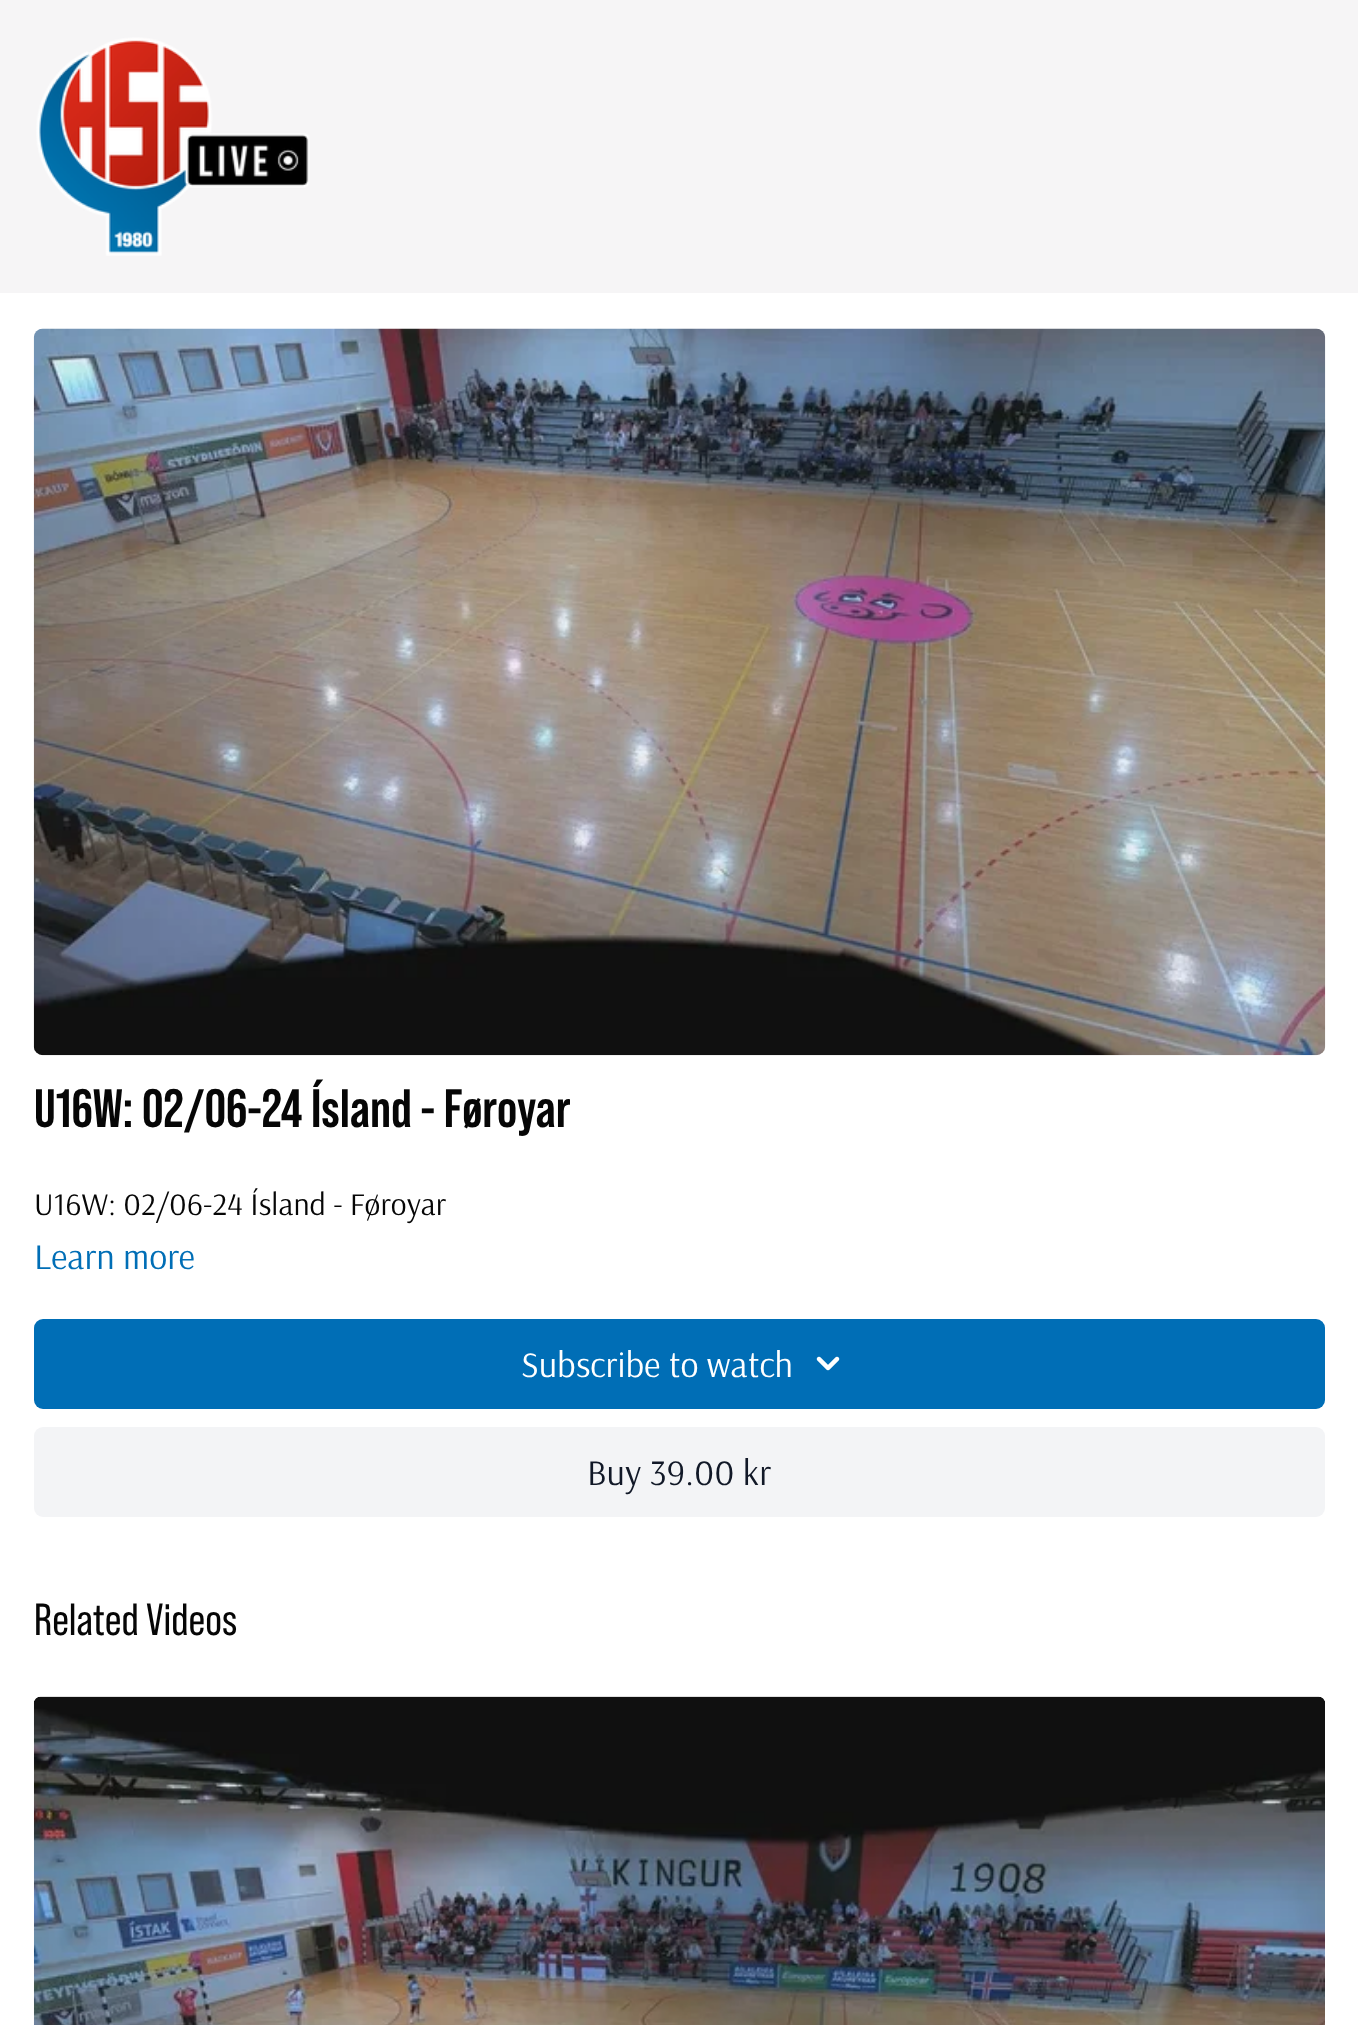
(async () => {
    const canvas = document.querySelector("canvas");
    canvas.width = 1358;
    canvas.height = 2025;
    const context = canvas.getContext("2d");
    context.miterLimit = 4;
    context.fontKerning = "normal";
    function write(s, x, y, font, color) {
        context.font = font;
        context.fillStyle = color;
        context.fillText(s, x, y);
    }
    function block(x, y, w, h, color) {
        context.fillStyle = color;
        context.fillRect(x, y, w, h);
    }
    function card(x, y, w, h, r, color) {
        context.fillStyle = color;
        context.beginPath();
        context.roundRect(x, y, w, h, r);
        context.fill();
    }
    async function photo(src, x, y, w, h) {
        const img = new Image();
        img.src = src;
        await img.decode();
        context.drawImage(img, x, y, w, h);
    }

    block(0, 0, 1358, 2025, "rgb(255, 255, 255)");
    block(0, 0, 1358, 293, "rgb(246, 245, 246)");
    await photo("media/1.png", 36, 37, 274, 219);
    await photo("media/2.png", 33, 328, 1293, 728);
    write("U16W: 02/06-24 Ísland - Føroyar", 34, 1127, "bold 54px Bebas Neue", "rgb(6, 6, 6)");
    write("U16W: 02/06-24 Ísland - Føroyar", 34, 1215, "31.5px Arsenal", "rgb(6, 6, 6)");
    write("Learn more", 34, 1269, "36px Arsenal", "rgb(0, 110, 182)");
    card(34, 1319, 1291, 90, 9, "rgb(0, 110, 182)");
    write("Subscribe to watch", 521, 1377, "36px Arsenal", "rgb(255, 255, 255)");
    await photo("media/3.png", 816, 1356, 24, 15);
    card(34, 1427, 1291, 90, 9, "rgb(243, 244, 246)");
    write("Buy 39.00 kr", 587, 1485, "36px Arsenal", "rgb(17, 24, 39)");
    write("Related Videos", 34, 1635, "45px Bebas Neue", "rgb(6, 6, 6)");
    await photo("media/4.png", 33, 1696, 1292, 329);
})();
